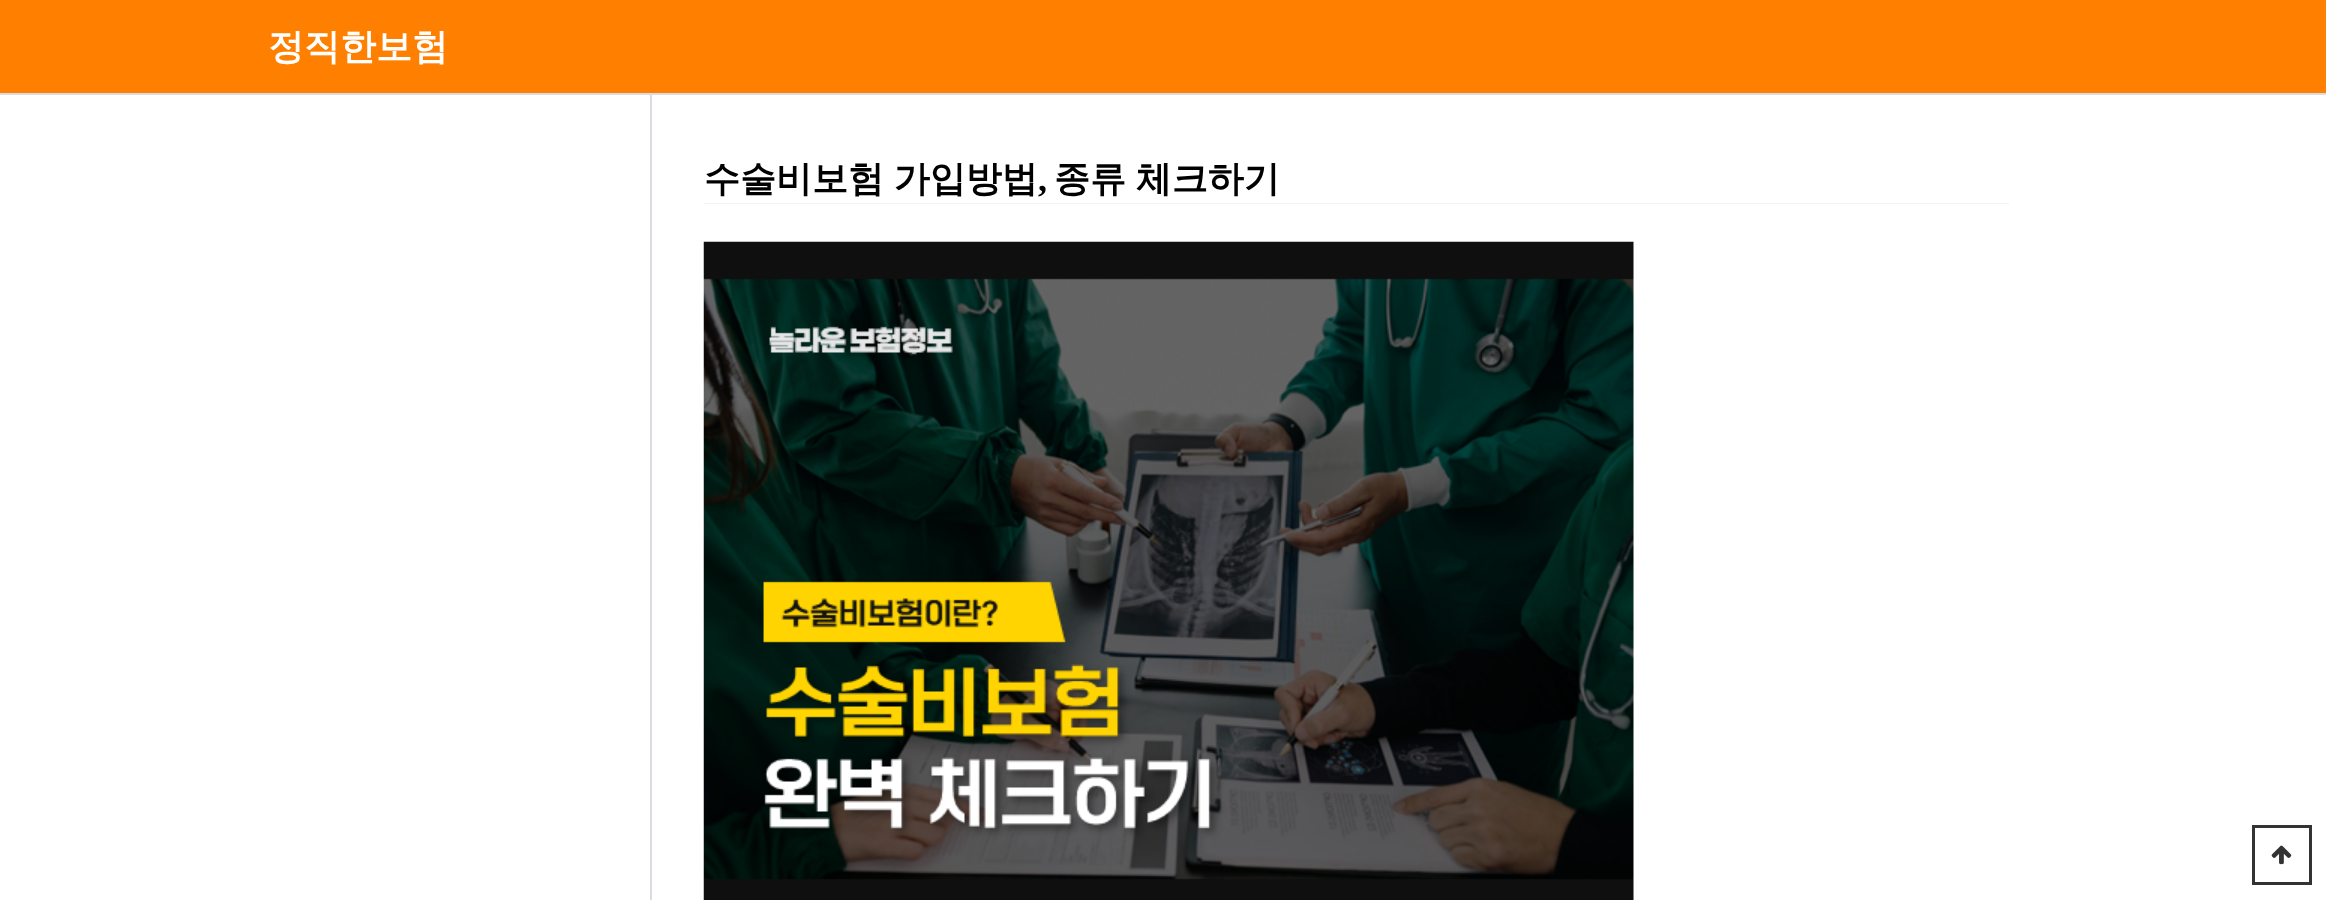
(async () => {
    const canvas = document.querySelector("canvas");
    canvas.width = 2326;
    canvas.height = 900;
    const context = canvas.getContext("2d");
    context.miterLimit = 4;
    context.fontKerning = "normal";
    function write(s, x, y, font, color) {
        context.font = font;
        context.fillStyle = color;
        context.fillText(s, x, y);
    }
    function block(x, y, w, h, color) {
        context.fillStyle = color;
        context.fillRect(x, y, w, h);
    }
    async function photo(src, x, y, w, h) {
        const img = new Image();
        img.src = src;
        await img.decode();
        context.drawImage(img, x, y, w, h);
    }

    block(0, 0, 2326, 900, "rgb(217, 221, 227)");
    block(0, 0, 2326, 93, "rgb(255, 128, 0)");
    write("정직한보험", 268, 59, "bold 36px WenQuanYi Zen Hei", "rgb(255, 255, 255)");
    block(0, 95, 650, 805, "rgb(255, 255, 255)");
    block(652, 95, 1674, 805, "rgb(255, 255, 255)");
    block(704, 203, 1305, 1, "rgb(241, 243, 246)");
    context.wordSpacing = "-1px";
    write("수술비보험 가입방법", 704, 191, "bold 36px WenQuanYi Zen Hei", "rgb(0, 0, 0)");
    context.wordSpacing = "0px";
    write(",", 1038, 191, "bold 36px Liberation Serif", "rgb(0, 0, 0)");
    context.wordSpacing = "-1px";
    write("종류 체크하기", 1054, 191, "bold 36px WenQuanYi Zen Hei", "rgb(0, 0, 0)");
    await photo("media/1.png", 703, 241, 931, 659);
    context.strokeStyle = "rgb(51, 51, 51)";
    context.lineWidth = 3;
    context.strokeRect(2253.5, 826.5, 57, 57);
    await photo("media/2.png", 2271, 845, 21, 20);
})();
